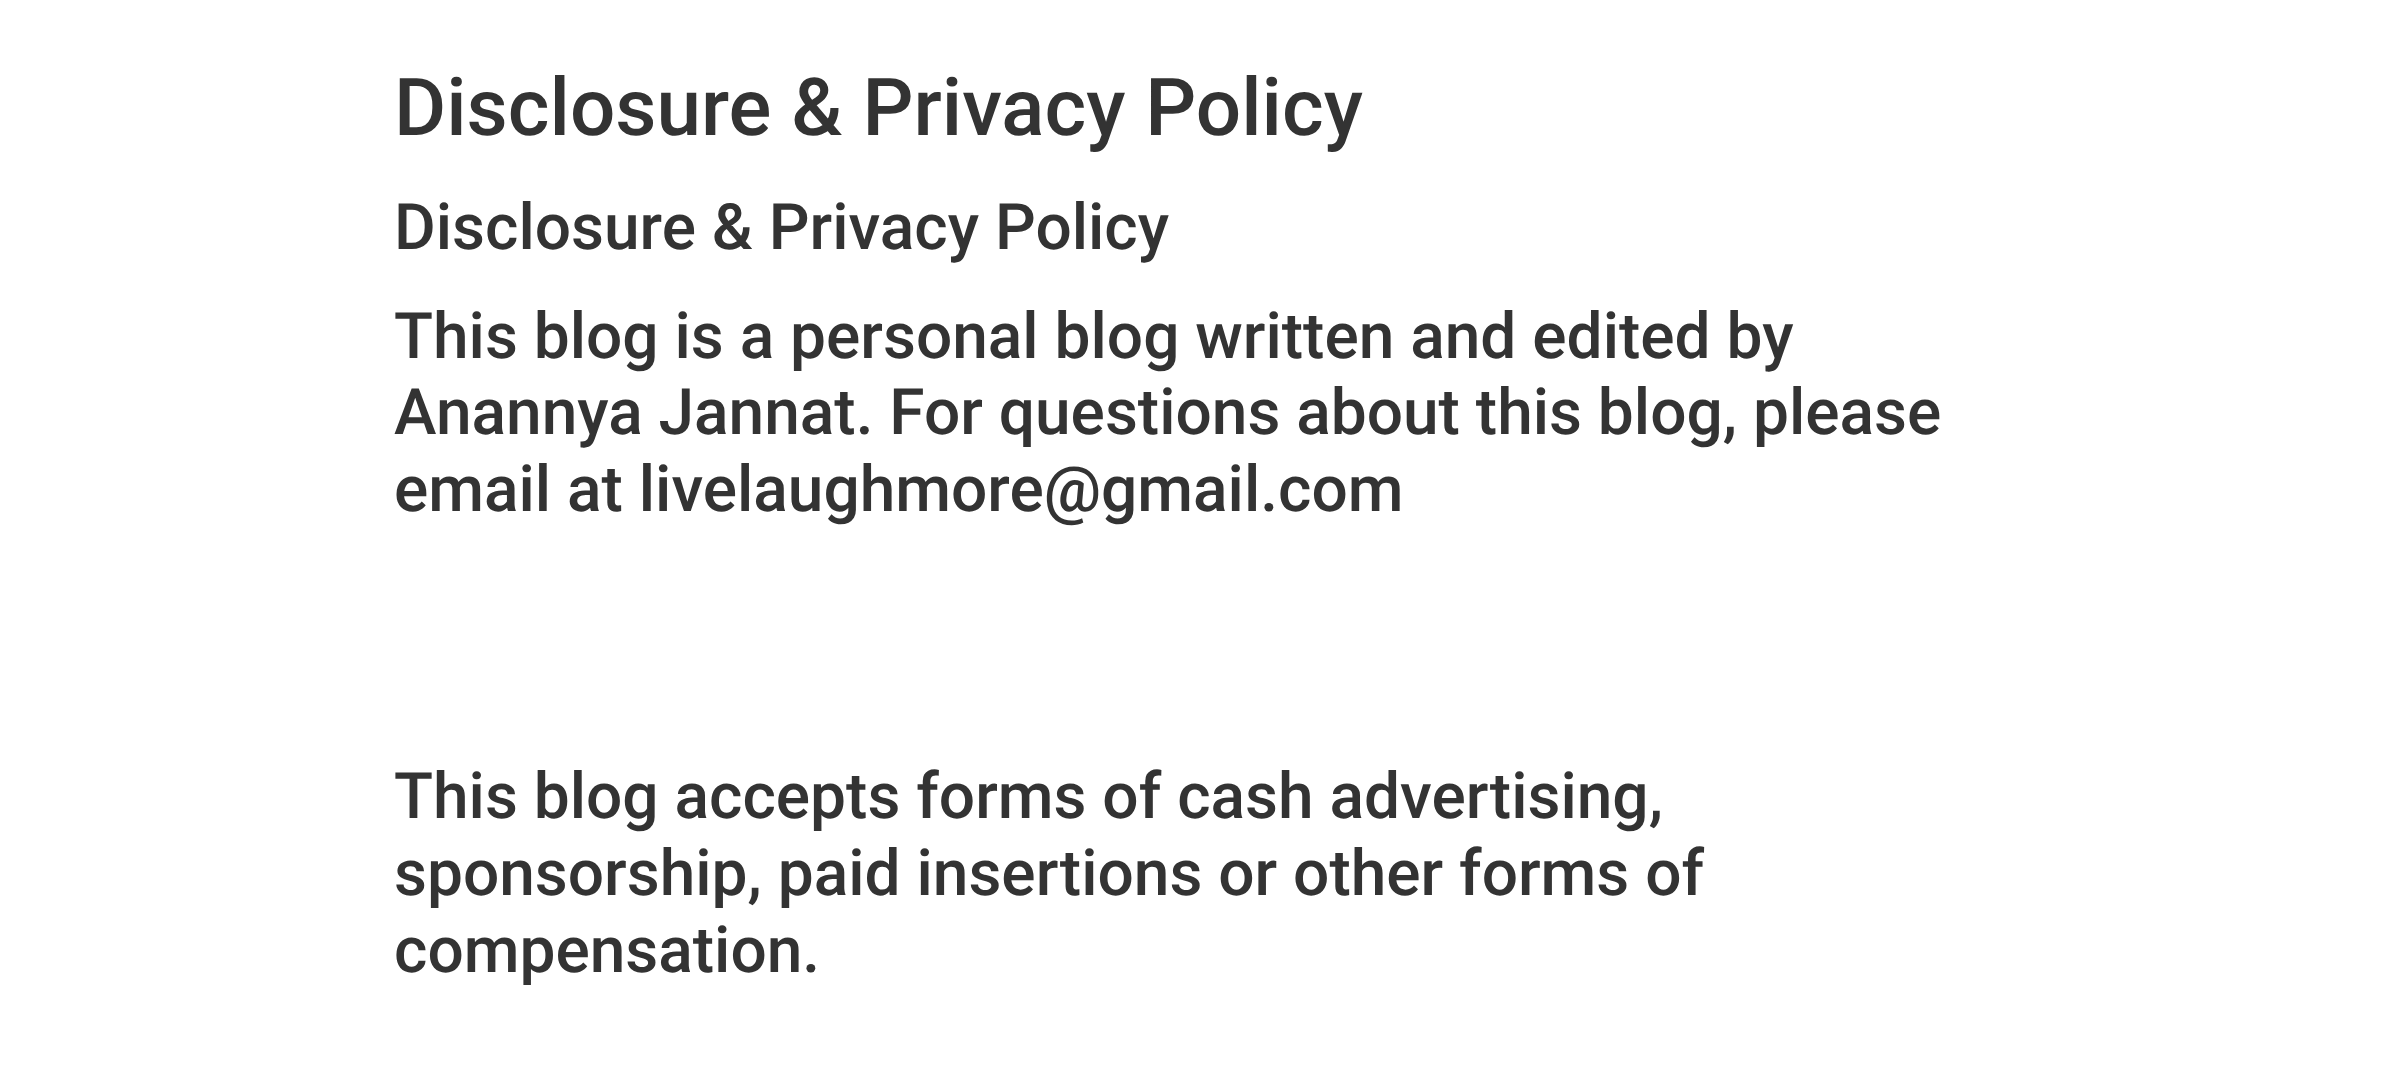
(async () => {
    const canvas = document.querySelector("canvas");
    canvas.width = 2388;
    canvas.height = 1084;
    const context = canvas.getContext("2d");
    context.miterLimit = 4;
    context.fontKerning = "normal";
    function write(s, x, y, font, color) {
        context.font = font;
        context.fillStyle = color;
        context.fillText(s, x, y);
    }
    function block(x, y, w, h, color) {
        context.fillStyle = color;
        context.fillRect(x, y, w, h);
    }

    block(0, 0, 2388, 1084, "rgb(255, 255, 255)");
    write("Disclosure & Privacy Policy", 394, 135, "500 80px Roboto", "rgb(51, 51, 51)");
    write("Disclosure & Privacy Policy", 394, 249, "500 64px Roboto", "rgb(51, 51, 51)");
    write("This blog is a personal blog written and edited by", 394, 358, "500 64px Roboto", "rgb(51, 51, 51)");
    write("Anannya Jannat. For questions about this blog, please", 394, 434, "500 64px Roboto", "rgb(51, 51, 51)");
    write("email at livelaughmore@gmail.com", 394, 511, "500 64px Roboto", "rgb(51, 51, 51)");
    write("This blog accepts forms of cash advertising,", 394, 818, "500 64px Roboto", "rgb(51, 51, 51)");
    write("sponsorship, paid insertions or other forms of", 394, 895, "500 64px Roboto", "rgb(51, 51, 51)");
    write("compensation.", 394, 972, "500 64px Roboto", "rgb(51, 51, 51)");
})();
